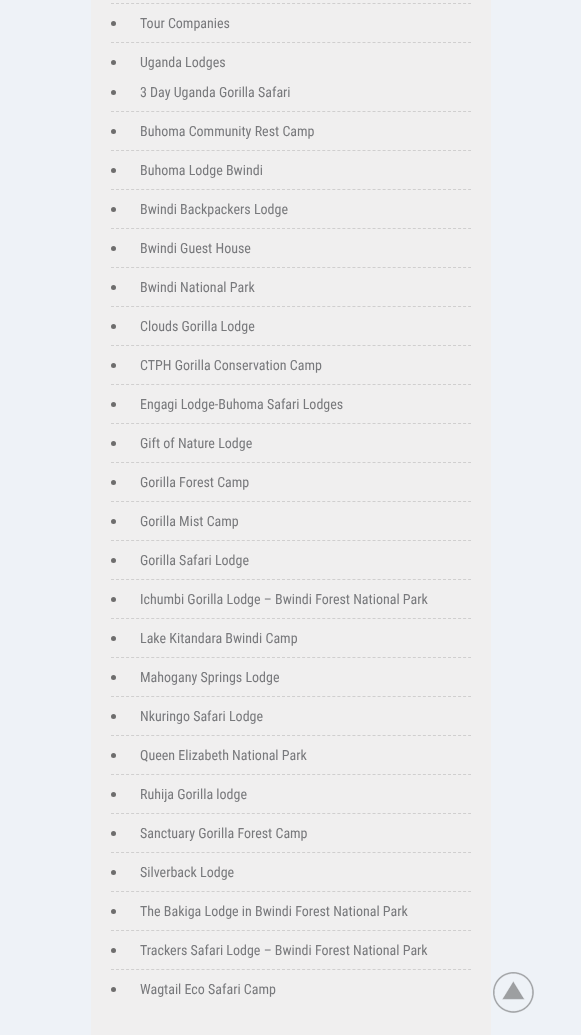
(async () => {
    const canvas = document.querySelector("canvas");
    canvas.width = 581;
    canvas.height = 1035;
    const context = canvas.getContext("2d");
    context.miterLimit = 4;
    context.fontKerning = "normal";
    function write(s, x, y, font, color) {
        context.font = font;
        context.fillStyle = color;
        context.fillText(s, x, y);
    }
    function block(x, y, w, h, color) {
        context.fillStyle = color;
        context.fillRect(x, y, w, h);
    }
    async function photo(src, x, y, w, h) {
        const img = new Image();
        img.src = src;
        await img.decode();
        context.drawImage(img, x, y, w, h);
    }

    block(0, 0, 581, 1035, "rgb(238, 242, 247)");
    block(91, 0, 400, 1035, "rgb(240, 239, 239)");
    context.beginPath();
    context.moveTo(111, 3.5);
    context.lineTo(471, 3.5);
    context.strokeStyle = "rgb(208, 207, 207)";
    context.setLineDash([3, 2.03]);
    context.stroke();
    context.beginPath();
    context.moveTo(111, 42.5);
    context.lineTo(471, 42.5);
    context.stroke();
    context.fillStyle = "rgb(110, 109, 109)";
    context.beginPath();
    context.arc(113.5, 23.5, 2.5, 0, Math.PI * 2);
    context.fill();
    write("Tour Companies", 140, 28, "14px Roboto Condensed", "rgb(120, 121, 124)");
    context.fillStyle = "rgb(110, 109, 109)";
    context.beginPath();
    context.arc(113.5, 62.5, 2.5, 0, Math.PI * 2);
    context.fill();
    write("Uganda Lodges", 140, 67, "14px Roboto Condensed", "rgb(120, 121, 124)");
    context.beginPath();
    context.moveTo(111, 111.5);
    context.lineTo(471, 111.5);
    context.stroke();
    context.fillStyle = "rgb(110, 109, 109)";
    context.beginPath();
    context.arc(113.5, 92.5, 2.5, 0, Math.PI * 2);
    context.fill();
    write("3 Day Uganda Gorilla Safari", 140, 97, "14px Roboto Condensed", "rgb(120, 121, 124)");
    context.beginPath();
    context.moveTo(111, 150.5);
    context.lineTo(471, 150.5);
    context.stroke();
    context.fillStyle = "rgb(110, 109, 109)";
    context.beginPath();
    context.arc(113.5, 131.5, 2.5, 0, Math.PI * 2);
    context.fill();
    write("Buhoma Community Rest Camp", 140, 136, "14px Roboto Condensed", "rgb(120, 121, 124)");
    context.beginPath();
    context.moveTo(111, 189.5);
    context.lineTo(471, 189.5);
    context.stroke();
    context.fillStyle = "rgb(110, 109, 109)";
    context.beginPath();
    context.arc(113.5, 170.5, 2.5, 0, Math.PI * 2);
    context.fill();
    write("Buhoma Lodge Bwindi", 140, 175, "14px Roboto Condensed", "rgb(120, 121, 124)");
    context.beginPath();
    context.moveTo(111, 228.5);
    context.lineTo(471, 228.5);
    context.stroke();
    context.fillStyle = "rgb(110, 109, 109)";
    context.beginPath();
    context.arc(113.5, 209.5, 2.5, 0, Math.PI * 2);
    context.fill();
    write("Bwindi Backpackers Lodge", 140, 214, "14px Roboto Condensed", "rgb(120, 121, 124)");
    context.beginPath();
    context.moveTo(111, 267.5);
    context.lineTo(471, 267.5);
    context.stroke();
    context.fillStyle = "rgb(110, 109, 109)";
    context.beginPath();
    context.arc(113.5, 248.5, 2.5, 0, Math.PI * 2);
    context.fill();
    write("Bwindi Guest House", 140, 253, "14px Roboto Condensed", "rgb(120, 121, 124)");
    context.beginPath();
    context.moveTo(111, 306.5);
    context.lineTo(471, 306.5);
    context.stroke();
    context.fillStyle = "rgb(110, 109, 109)";
    context.beginPath();
    context.arc(113.5, 287.5, 2.5, 0, Math.PI * 2);
    context.fill();
    write("Bwindi National Park", 140, 292, "14px Roboto Condensed", "rgb(120, 121, 124)");
    context.beginPath();
    context.moveTo(111, 345.5);
    context.lineTo(471, 345.5);
    context.stroke();
    context.fillStyle = "rgb(110, 109, 109)";
    context.beginPath();
    context.arc(113.5, 326.5, 2.5, 0, Math.PI * 2);
    context.fill();
    write("Clouds Gorilla Lodge", 140, 331, "14px Roboto Condensed", "rgb(120, 121, 124)");
    context.beginPath();
    context.moveTo(111, 384.5);
    context.lineTo(471, 384.5);
    context.stroke();
    context.fillStyle = "rgb(110, 109, 109)";
    context.beginPath();
    context.arc(113.5, 365.5, 2.5, 0, Math.PI * 2);
    context.fill();
    write("CTPH Gorilla Conservation Camp", 140, 370, "14px Roboto Condensed", "rgb(120, 121, 124)");
    context.beginPath();
    context.moveTo(111, 423.5);
    context.lineTo(471, 423.5);
    context.stroke();
    context.fillStyle = "rgb(110, 109, 109)";
    context.beginPath();
    context.arc(113.5, 404.5, 2.5, 0, Math.PI * 2);
    context.fill();
    write("Engagi Lodge-Buhoma Safari Lodges", 140, 409, "14px Roboto Condensed", "rgb(120, 121, 124)");
    context.beginPath();
    context.moveTo(111, 462.5);
    context.lineTo(471, 462.5);
    context.stroke();
    context.fillStyle = "rgb(110, 109, 109)";
    context.beginPath();
    context.arc(113.5, 443.5, 2.5, 0, Math.PI * 2);
    context.fill();
    write("Gift of Nature Lodge", 140, 448, "14px Roboto Condensed", "rgb(120, 121, 124)");
    context.beginPath();
    context.moveTo(111, 501.5);
    context.lineTo(471, 501.5);
    context.stroke();
    context.fillStyle = "rgb(110, 109, 109)";
    context.beginPath();
    context.arc(113.5, 482.5, 2.5, 0, Math.PI * 2);
    context.fill();
    write("Gorilla Forest Camp", 140, 487, "14px Roboto Condensed", "rgb(120, 121, 124)");
    context.beginPath();
    context.moveTo(111, 540.5);
    context.lineTo(471, 540.5);
    context.stroke();
    context.fillStyle = "rgb(110, 109, 109)";
    context.beginPath();
    context.arc(113.5, 521.5, 2.5, 0, Math.PI * 2);
    context.fill();
    write("Gorilla Mist Camp", 140, 526, "14px Roboto Condensed", "rgb(120, 121, 124)");
    context.beginPath();
    context.moveTo(111, 579.5);
    context.lineTo(471, 579.5);
    context.stroke();
    context.fillStyle = "rgb(110, 109, 109)";
    context.beginPath();
    context.arc(113.5, 560.5, 2.5, 0, Math.PI * 2);
    context.fill();
    write("Gorilla Safari Lodge", 140, 565, "14px Roboto Condensed", "rgb(120, 121, 124)");
    context.beginPath();
    context.moveTo(111, 618.5);
    context.lineTo(471, 618.5);
    context.stroke();
    context.fillStyle = "rgb(110, 109, 109)";
    context.beginPath();
    context.arc(113.5, 599.5, 2.5, 0, Math.PI * 2);
    context.fill();
    write("Ichumbi Gorilla Lodge – Bwindi Forest National Park", 140, 604, "14px Roboto Condensed", "rgb(120, 121, 124)");
    context.beginPath();
    context.moveTo(111, 657.5);
    context.lineTo(471, 657.5);
    context.stroke();
    context.fillStyle = "rgb(110, 109, 109)";
    context.beginPath();
    context.arc(113.5, 638.5, 2.5, 0, Math.PI * 2);
    context.fill();
    write("Lake Kitandara Bwindi Camp", 140, 643, "14px Roboto Condensed", "rgb(120, 121, 124)");
    context.beginPath();
    context.moveTo(111, 696.5);
    context.lineTo(471, 696.5);
    context.stroke();
    context.fillStyle = "rgb(110, 109, 109)";
    context.beginPath();
    context.arc(113.5, 677.5, 2.5, 0, Math.PI * 2);
    context.fill();
    write("Mahogany Springs Lodge", 140, 682, "14px Roboto Condensed", "rgb(120, 121, 124)");
    context.beginPath();
    context.moveTo(111, 735.5);
    context.lineTo(471, 735.5);
    context.stroke();
    context.fillStyle = "rgb(110, 109, 109)";
    context.beginPath();
    context.arc(113.5, 716.5, 2.5, 0, Math.PI * 2);
    context.fill();
    write("Nkuringo Safari Lodge", 140, 721, "14px Roboto Condensed", "rgb(120, 121, 124)");
    context.beginPath();
    context.moveTo(111, 774.5);
    context.lineTo(471, 774.5);
    context.stroke();
    context.fillStyle = "rgb(110, 109, 109)";
    context.beginPath();
    context.arc(113.5, 755.5, 2.5, 0, Math.PI * 2);
    context.fill();
    write("Queen Elizabeth National Park", 140, 760, "14px Roboto Condensed", "rgb(120, 121, 124)");
    context.beginPath();
    context.moveTo(111, 813.5);
    context.lineTo(471, 813.5);
    context.stroke();
    context.fillStyle = "rgb(110, 109, 109)";
    context.beginPath();
    context.arc(113.5, 794.5, 2.5, 0, Math.PI * 2);
    context.fill();
    write("Ruhija Gorilla lodge", 140, 799, "14px Roboto Condensed", "rgb(120, 121, 124)");
    context.beginPath();
    context.moveTo(111, 852.5);
    context.lineTo(471, 852.5);
    context.stroke();
    context.fillStyle = "rgb(110, 109, 109)";
    context.beginPath();
    context.arc(113.5, 833.5, 2.5, 0, Math.PI * 2);
    context.fill();
    write("Sanctuary Gorilla Forest Camp", 140, 838, "14px Roboto Condensed", "rgb(120, 121, 124)");
    context.beginPath();
    context.moveTo(111, 891.5);
    context.lineTo(471, 891.5);
    context.stroke();
    context.fillStyle = "rgb(110, 109, 109)";
    context.beginPath();
    context.arc(113.5, 872.5, 2.5, 0, Math.PI * 2);
    context.fill();
    write("Silverback Lodge", 140, 877, "14px Roboto Condensed", "rgb(120, 121, 124)");
    context.beginPath();
    context.moveTo(111, 930.5);
    context.lineTo(471, 930.5);
    context.stroke();
    context.fillStyle = "rgb(110, 109, 109)";
    context.beginPath();
    context.arc(113.5, 911.5, 2.5, 0, Math.PI * 2);
    context.fill();
    write("The Bakiga Lodge in Bwindi Forest National Park", 140, 916, "14px Roboto Condensed", "rgb(120, 121, 124)");
    context.beginPath();
    context.moveTo(111, 969.5);
    context.lineTo(471, 969.5);
    context.stroke();
    context.fillStyle = "rgb(110, 109, 109)";
    context.beginPath();
    context.arc(113.5, 950.5, 2.5, 0, Math.PI * 2);
    context.fill();
    write("Trackers Safari Lodge – Bwindi Forest National Park", 140, 955, "14px Roboto Condensed", "rgb(120, 121, 124)");
    context.fillStyle = "rgb(110, 109, 109)";
    context.beginPath();
    context.arc(113.5, 989.5, 2.5, 0, Math.PI * 2);
    context.fill();
    write("Wagtail Eco Safari Camp", 140, 994, "14px Roboto Condensed", "rgb(120, 121, 124)");
    await photo("media/1.png", 493, 972, 41, 41);
})();
